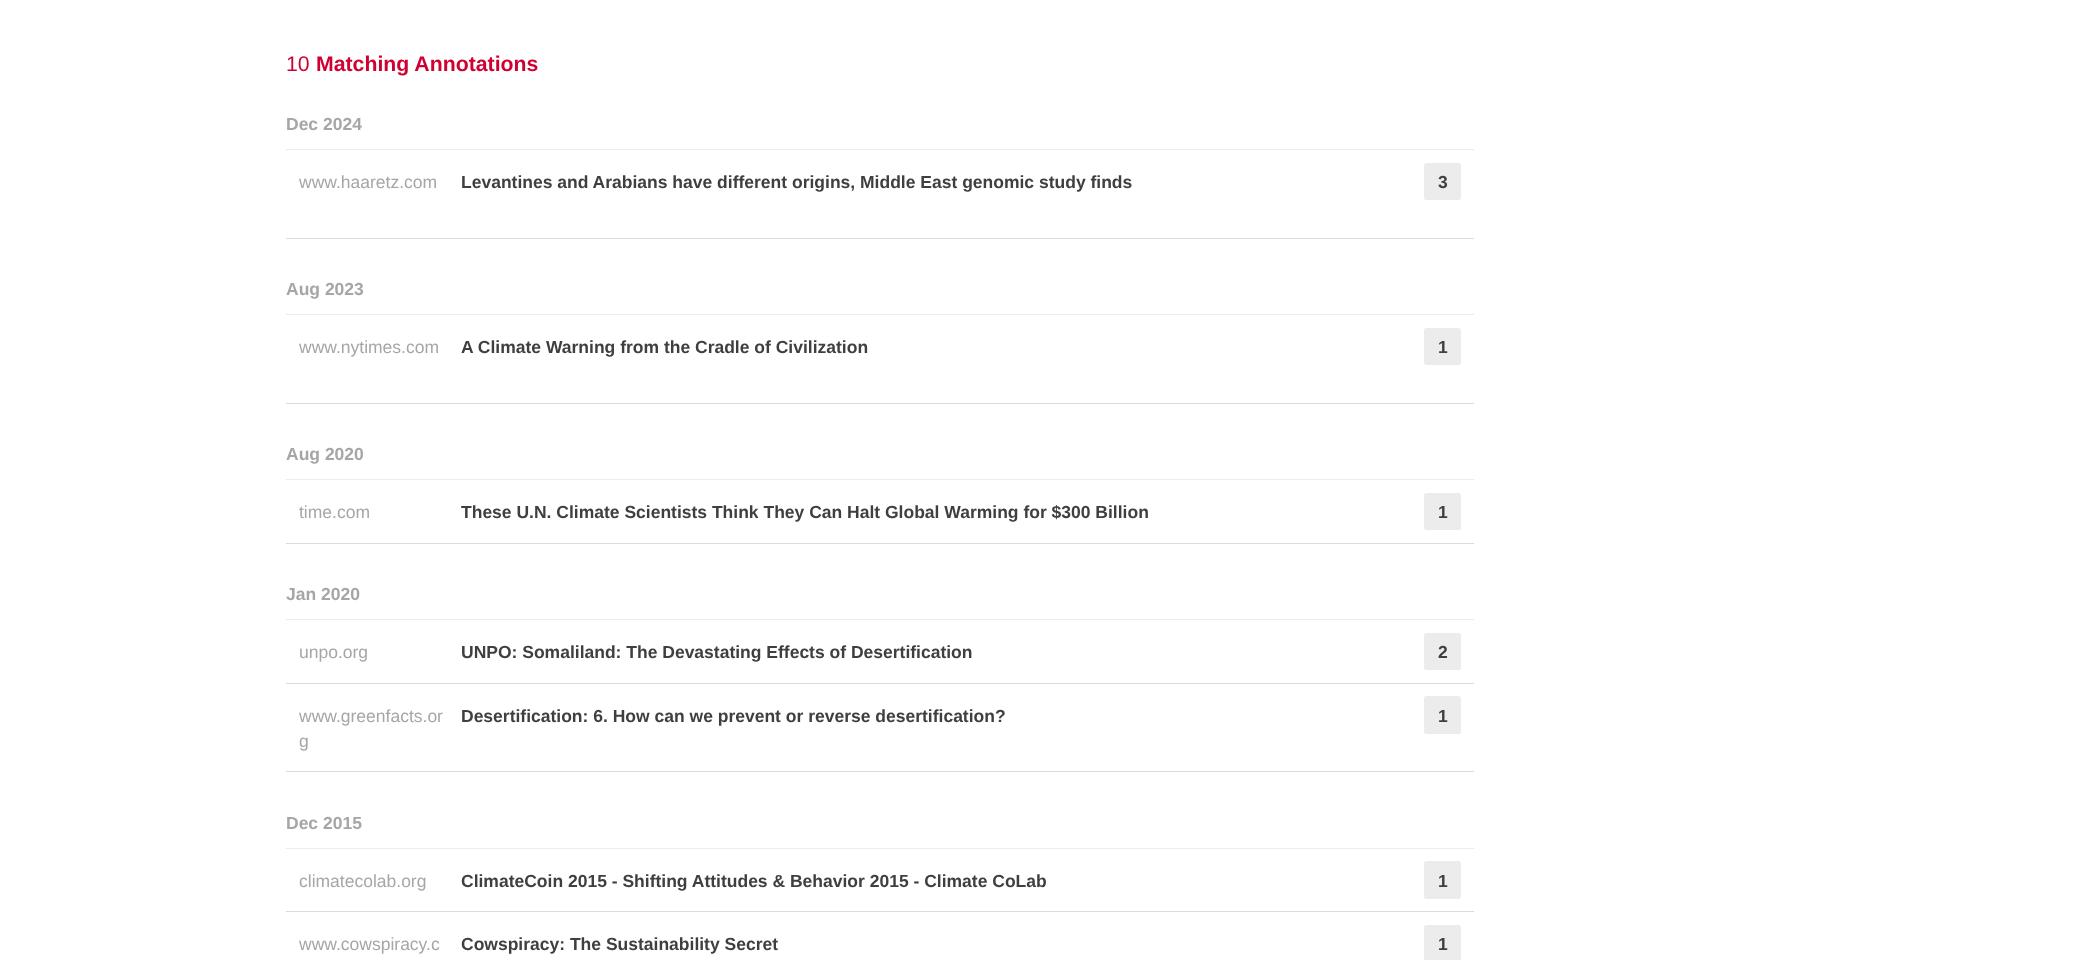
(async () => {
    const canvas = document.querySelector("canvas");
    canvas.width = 2078;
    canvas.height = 960;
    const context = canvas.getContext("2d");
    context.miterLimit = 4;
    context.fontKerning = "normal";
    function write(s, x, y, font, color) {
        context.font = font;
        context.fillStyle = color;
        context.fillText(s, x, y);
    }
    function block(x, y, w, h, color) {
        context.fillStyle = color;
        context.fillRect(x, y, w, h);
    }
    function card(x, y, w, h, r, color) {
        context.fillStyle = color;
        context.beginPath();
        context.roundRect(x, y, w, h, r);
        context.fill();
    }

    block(0, 0, 2078, 960, "rgb(255, 255, 255)");
    write("10", 286, 71, "21.25px Liberation Sans", "rgb(208, 0, 50)");
    write("Matching Annotations", 316, 71, "bold 21.25px Liberation Sans", "rgb(208, 0, 50)");
    block(286, 149, 1188, 1, "rgb(236, 236, 236)");
    write("Dec 2024", 286, 130, "bold 17.5px Liberation Sans", "rgb(166, 166, 166)");
    block(286, 238, 1188, 1, "rgb(219, 219, 219)");
    write("www.haaretz.com", 299, 188, "17.5px Liberation Sans", "rgb(166, 166, 166)");
    write("Levantines and Arabians have different origins, Middle East genomic study finds", 461, 188, "bold 17.5px Liberation Sans", "rgb(63, 63, 63)");
    card(1424, 163, 37, 37, 2.5, "rgb(236, 236, 236)");
    write("3", 1438, 188, "bold 17.5px Liberation Sans", "rgb(63, 63, 63)");
    block(286, 314, 1188, 1, "rgb(236, 236, 236)");
    write("Aug 2023", 286, 295, "bold 17.5px Liberation Sans", "rgb(166, 166, 166)");
    block(286, 403, 1188, 1, "rgb(219, 219, 219)");
    write("www.nytimes.com", 299, 353, "17.5px Liberation Sans", "rgb(166, 166, 166)");
    write("A Climate Warning from the Cradle of Civilization", 461, 353, "bold 17.5px Liberation Sans", "rgb(63, 63, 63)");
    card(1424, 328, 37, 37, 2.5, "rgb(236, 236, 236)");
    write("1", 1438, 353, "bold 17.5px Liberation Sans", "rgb(63, 63, 63)");
    block(286, 479, 1188, 1, "rgb(236, 236, 236)");
    write("Aug 2020", 286, 460, "bold 17.5px Liberation Sans", "rgb(166, 166, 166)");
    block(286, 543, 1188, 1, "rgb(219, 219, 219)");
    write("time.com", 299, 518, "17.5px Liberation Sans", "rgb(166, 166, 166)");
    write("These U.N. Climate Scientists Think They Can Halt Global Warming for $300 Billion", 461, 518, "bold 17.5px Liberation Sans", "rgb(63, 63, 63)");
    card(1424, 493, 37, 37, 2.5, "rgb(236, 236, 236)");
    write("1", 1438, 518, "bold 17.5px Liberation Sans", "rgb(63, 63, 63)");
    block(286, 619, 1188, 1, "rgb(236, 236, 236)");
    write("Jan 2020", 286, 600, "bold 17.5px Liberation Sans", "rgb(166, 166, 166)");
    block(286, 683, 1188, 1, "rgb(219, 219, 219)");
    write("unpo.org", 299, 658, "17.5px Liberation Sans", "rgb(166, 166, 166)");
    write("UNPO: Somaliland: The Devastating Effects of Desertification", 461, 658, "bold 17.5px Liberation Sans", "rgb(63, 63, 63)");
    card(1424, 633, 37, 37, 2.5, "rgb(236, 236, 236)");
    write("2", 1438, 658, "bold 17.5px Liberation Sans", "rgb(63, 63, 63)");
    block(286, 771, 1188, 1, "rgb(219, 219, 219)");
    write("www.greenfacts.or", 299, 722, "17.5px Liberation Sans", "rgb(166, 166, 166)");
    write("g", 299, 747, "17.5px Liberation Sans", "rgb(166, 166, 166)");
    write("Desertification: 6. How can we prevent or reverse desertification?", 461, 722, "bold 17.5px Liberation Sans", "rgb(63, 63, 63)");
    card(1424, 696, 37, 38, 2.5, "rgb(236, 236, 236)");
    write("1", 1438, 722, "bold 17.5px Liberation Sans", "rgb(63, 63, 63)");
    block(286, 848, 1188, 1, "rgb(236, 236, 236)");
    write("Dec 2015", 286, 829, "bold 17.5px Liberation Sans", "rgb(166, 166, 166)");
    block(286, 911, 1188, 1, "rgb(219, 219, 219)");
    write("climatecolab.org", 299, 887, "17.5px Liberation Sans", "rgb(166, 166, 166)");
    write("ClimateCoin 2015 - Shifting Attitudes & Behavior 2015 - Climate CoLab", 461, 887, "bold 17.5px Liberation Sans", "rgb(63, 63, 63)");
    card(1424, 861, 37, 38, 2.5, "rgb(236, 236, 236)");
    write("1", 1438, 887, "bold 17.5px Liberation Sans", "rgb(63, 63, 63)");
    write("www.cowspiracy.c", 299, 950, "17.5px Liberation Sans", "rgb(166, 166, 166)");
    write("Cowspiracy: The Sustainability Secret", 461, 950, "bold 17.5px Liberation Sans", "rgb(63, 63, 63)");
    card(1424, 925, 37, 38, 2.5, "rgb(236, 236, 236)");
    write("1", 1438, 950, "bold 17.5px Liberation Sans", "rgb(63, 63, 63)");
})();
